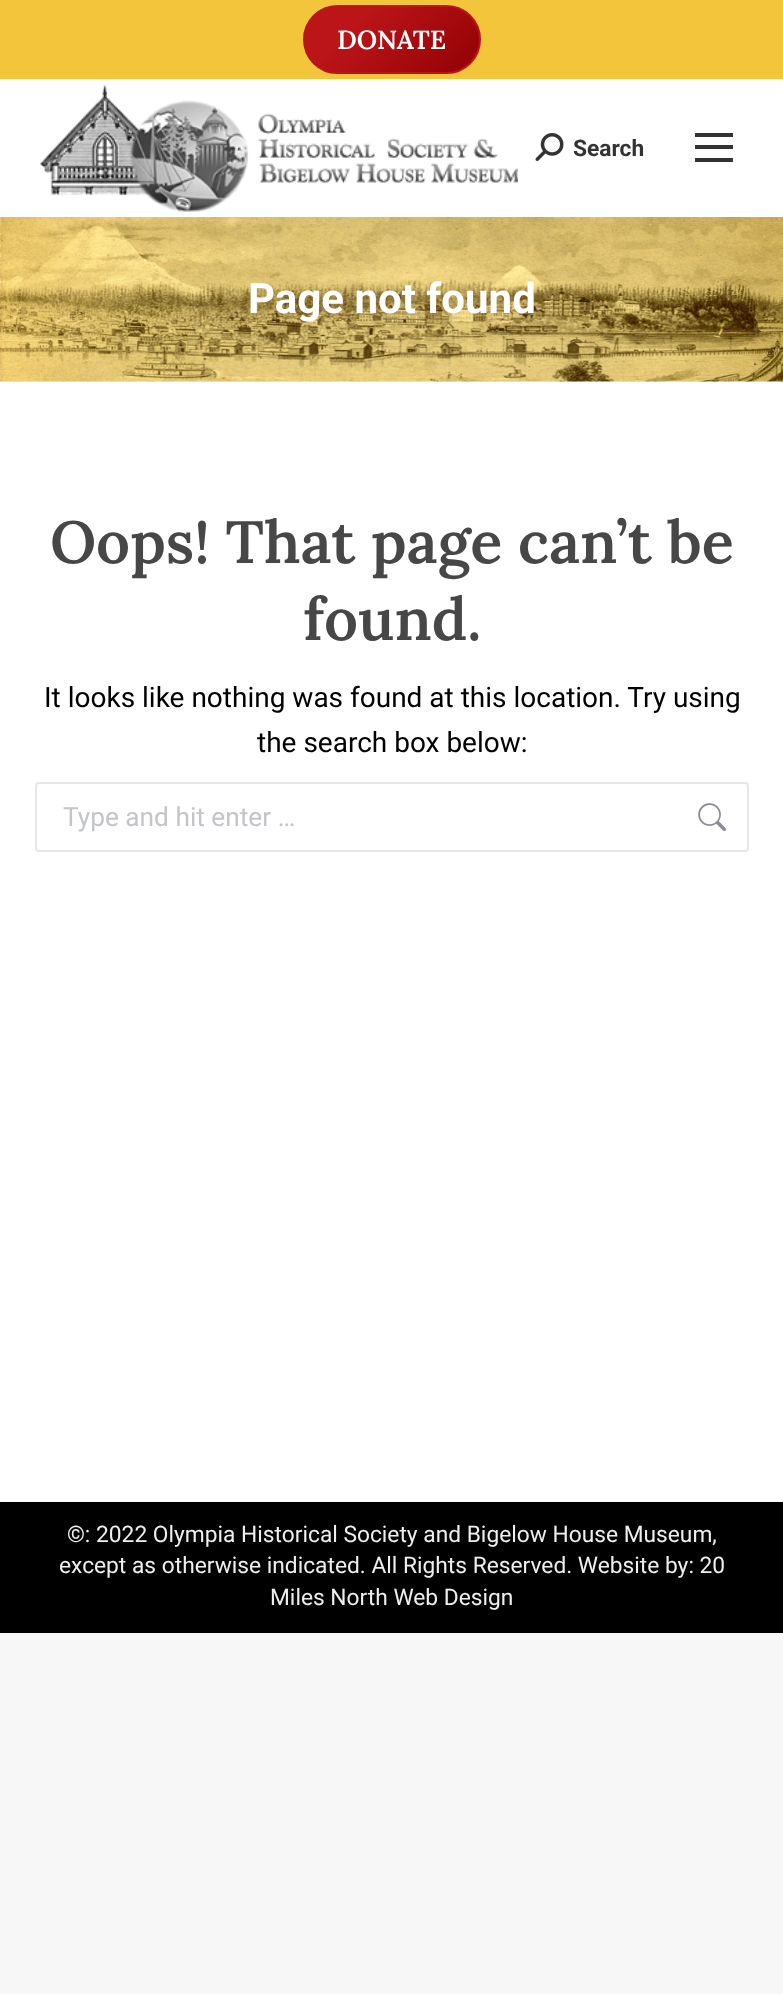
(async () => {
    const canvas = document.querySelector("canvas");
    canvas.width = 783;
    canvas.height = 1994;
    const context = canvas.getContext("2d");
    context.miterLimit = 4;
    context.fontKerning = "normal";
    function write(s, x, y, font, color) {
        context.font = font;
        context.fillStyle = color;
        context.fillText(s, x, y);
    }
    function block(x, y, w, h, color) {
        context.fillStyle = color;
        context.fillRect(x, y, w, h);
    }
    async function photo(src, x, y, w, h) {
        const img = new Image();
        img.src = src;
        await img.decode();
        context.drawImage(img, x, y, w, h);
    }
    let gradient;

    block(0, 0, 783, 1994, "rgb(247, 247, 247)");
    block(0, 79, 783, 1423, "rgb(255, 255, 255)");
    block(0, 0, 783, 79, "rgb(243, 197, 59)");
    gradient = context.createLinearGradient(330, -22, 454, 101);
    gradient.addColorStop(0.28, "rgb(187, 21, 25)");
    gradient.addColorStop(1, "rgb(145, 0, 4)");
    context.fillStyle = gradient;
    context.beginPath();
    context.roundRect(304, 6, 176, 67, 33.5);
    context.fill();
    context.strokeStyle = "rgb(187, 21, 25)";
    context.lineWidth = 2;
    context.stroke();
    write("DONATE", 337, 49, "600 26.25px Lora", "rgb(255, 255, 255)");
    await photo("media/1.png", 40, 84, 478, 128);
    await photo("media/2.png", 535, 133, 29, 28);
    write("Search", 573, 156, "bold 22.75px Roboto", "rgb(51, 51, 51)");
    block(695, 133, 38, 4, "rgb(51, 51, 51)");
    block(695, 145, 38, 4, "rgb(51, 51, 51)");
    block(695, 158, 38, 4, "rgb(51, 51, 51)");
    block(0, 381, 783, 1, "rgb(245, 245, 245)");
    await photo("media/3.png", 0, 217, 783, 165);
    write("Page not found", 248, 313, "bold 42px Roboto", "rgb(255, 255, 255)");
    write("Oops! That page can’t be", 50, 563, "600 59.5px Lora", "rgb(71, 71, 71)");
    write("found.", 303, 640, "600 59.5px Lora", "rgb(71, 71, 71)");
    write("It looks like nothing was found at this location. Try using", 44, 707, "28px Roboto", "rgb(0, 0, 0)");
    write("the search box below:", 257, 752, "28px Roboto", "rgb(0, 0, 0)");
    context.beginPath();
    context.roundRect(36, 783, 712, 68, 3);
    context.strokeStyle = "rgb(231, 231, 231)";
    context.stroke();
    write("Type and hit enter …", 63, 826, "26.25px Roboto", "rgb(196, 197, 201)");
    await photo("media/4.png", 698, 803, 28, 28);
    block(0, 1502, 783, 131, "rgb(0, 0, 0)");
    write("©: 2022 Olympia Historical Society and Bigelow House Museum,", 67, 1542, "22.75px Roboto", "rgb(238, 238, 238)");
    write("except as otherwise indicated. All Rights Reserved. Website by: 20", 59, 1573, "22.75px Roboto", "rgb(238, 238, 238)");
    write("Miles North Web Design", 270, 1605, "22.75px Roboto", "rgb(238, 238, 238)");
})();
